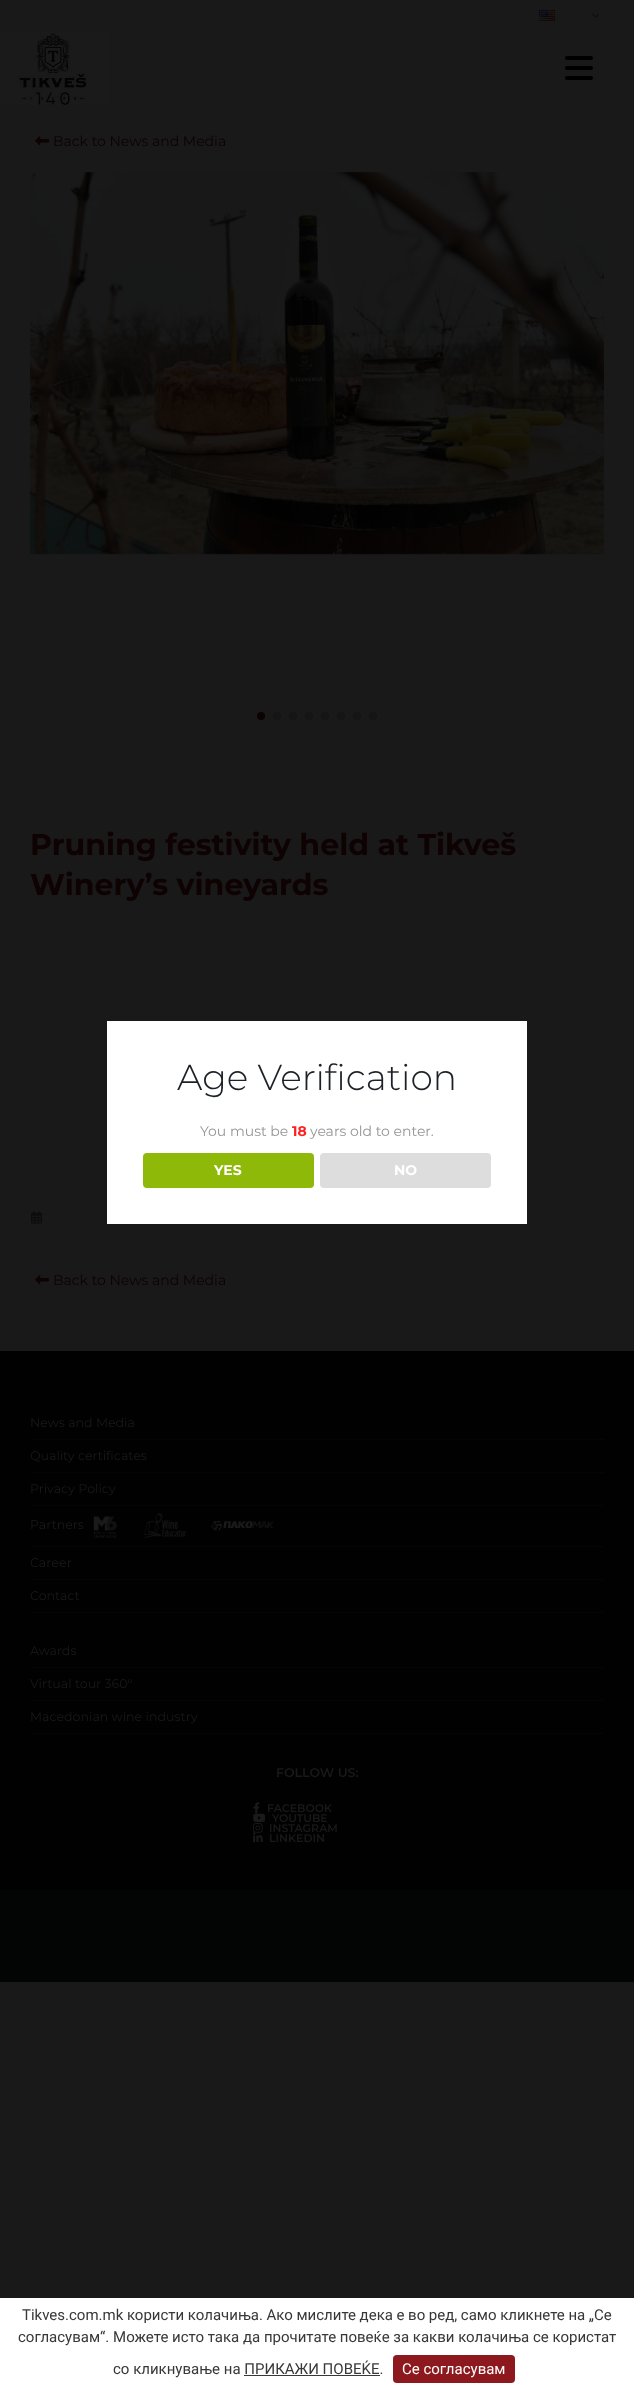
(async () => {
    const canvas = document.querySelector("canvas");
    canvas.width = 634;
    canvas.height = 2395;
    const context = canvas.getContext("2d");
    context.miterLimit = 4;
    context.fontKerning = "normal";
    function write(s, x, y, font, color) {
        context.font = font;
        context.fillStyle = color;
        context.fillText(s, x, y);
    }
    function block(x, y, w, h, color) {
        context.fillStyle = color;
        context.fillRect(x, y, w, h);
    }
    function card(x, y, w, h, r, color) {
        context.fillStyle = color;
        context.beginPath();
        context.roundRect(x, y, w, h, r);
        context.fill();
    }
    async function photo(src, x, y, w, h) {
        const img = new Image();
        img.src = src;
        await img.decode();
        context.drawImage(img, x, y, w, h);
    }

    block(0, 0, 634, 2395, "rgb(25, 25, 25)");
    await photo("media/1.png", 539, 10, 16, 11);
    await photo("media/2.png", 592, 13, 7, 5);
    await photo("media/3.png", 0, 32, 110, 73);
    await photo("media/4.png", 565, 56, 28, 24);
    await photo("media/5.png", 35, 136, 14, 10);
    write("Back to News and Media", 53, 146, "100 14px Montserrat", "rgb(14, 2, 3)");
    await photo("media/6.png", 30, 172, 574, 383);
    context.fillStyle = "rgb(12, 2, 2)";
    context.beginPath();
    context.arc(261, 716, 4, 0, Math.PI * 2);
    context.fill();
    context.fillStyle = "rgb(21, 21, 21)";
    context.beginPath();
    context.arc(277, 716, 4, 0, Math.PI * 2);
    context.fill();
    context.beginPath();
    context.arc(293, 716, 4, 0, Math.PI * 2);
    context.fill();
    context.beginPath();
    context.arc(309, 716, 4, 0, Math.PI * 2);
    context.fill();
    context.beginPath();
    context.arc(325, 716, 4, 0, Math.PI * 2);
    context.fill();
    context.beginPath();
    context.arc(341, 716, 4, 0, Math.PI * 2);
    context.fill();
    context.beginPath();
    context.arc(357, 716, 4, 0, Math.PI * 2);
    context.fill();
    context.beginPath();
    context.arc(373, 716, 4, 0, Math.PI * 2);
    context.fill();
    write("Pruning festivity held at Tikveš", 30, 855, "bold 30px Montserrat", "rgb(14, 2, 3)");
    write("Winery’s vineyards", 30, 895, "bold 30px Montserrat", "rgb(14, 2, 3)");
    await photo("media/7.png", 31, 1211, 11, 13);
    await photo("media/5.png", 35, 1275, 14, 10);
    write("Back to News and Media", 53, 1285, "100 14px Montserrat", "rgb(14, 2, 3)");
    block(0, 1351, 634, 539, "rgb(1, 1, 1)");
    block(30, 1612, 574, 1, "rgb(5, 5, 5)");
    write("News and Media", 30, 1427, "100 12.6px Montserrat", "rgb(25, 25, 25)");
    block(30, 1439, 574, 1, "rgb(5, 5, 5)");
    write("Quality certificates", 30, 1460, "100 12.6px Montserrat", "rgb(25, 25, 25)");
    block(30, 1472, 574, 1, "rgb(5, 5, 5)");
    write("Privacy Policy", 30, 1493, "100 12.6px Montserrat", "rgb(25, 25, 25)");
    block(30, 1505, 574, 1, "rgb(5, 5, 5)");
    write("Partners", 30, 1529, "100 12.6px Montserrat", "rgb(25, 25, 25)");
    await photo("media/8.png", 93, 1516, 24, 23);
    await photo("media/9.png", 143, 1513, 44, 25);
    await photo("media/10.png", 211, 1520, 63, 11);
    block(30, 1546, 574, 1, "rgb(5, 5, 5)");
    write("Carеer", 30, 1567, "100 12.6px Montserrat", "rgb(25, 25, 25)");
    block(30, 1579, 574, 1, "rgb(5, 5, 5)");
    write("Contact", 30, 1600, "100 12.6px Montserrat", "rgb(25, 25, 25)");
    block(30, 1733, 574, 1, "rgb(5, 5, 5)");
    write("Awards", 30, 1655, "100 12.6px Montserrat", "rgb(25, 25, 25)");
    block(30, 1667, 574, 1, "rgb(5, 5, 5)");
    write("Virtual tour 360°", 30, 1688, "100 12.6px Montserrat", "rgb(25, 25, 25)");
    block(30, 1700, 574, 1, "rgb(5, 5, 5)");
    write("Macedonian wine industry", 30, 1721, "100 12.6px Montserrat", "rgb(25, 25, 25)");
    write("FOLLOW US:", 276, 1777, "600 12.6px Montserrat", "rgb(25, 25, 25)");
    await photo("media/11.png", 253, 1802, 7, 12);
    write("FACEBOOK", 267, 1812, "600 11px Montserrat", "rgb(25, 25, 25)");
    await photo("media/12.png", 253, 1813, 13, 9);
    write("YOUTUBE", 272, 1822, "600 11px Montserrat", "rgb(25, 25, 25)");
    await photo("media/13.png", 253, 1823, 10, 10);
    write("INSTAGRAM", 269, 1832, "600 11px Montserrat", "rgb(25, 25, 25)");
    await photo("media/14.png", 253, 1832, 10, 10);
    write("LINKEDIN", 269, 1842, "600 11px Montserrat", "rgb(25, 25, 25)");
    block(0, 1890, 634, 92, "rgb(3, 4, 4)");
    block(107, 1021, 420, 203, "rgb(255, 255, 255)");
    write("Age Verification", 177, 1090, "300 36px Montserrat", "rgb(29, 33, 39)");
    write("You must be", 200, 1136, "100 14px Montserrat", "rgb(149, 149, 149)");
    write("18", 292, 1136, "bold 14px Montserrat", "rgb(255, 31, 31)");
    write("years old to enter.", 310, 1136, "100 14px Montserrat", "rgb(149, 149, 149)");
    card(143, 1153, 171, 35, 4, "rgb(142, 185, 8)");
    write("YES", 214, 1175, "bold 14px Montserrat", "rgb(255, 255, 255)");
    card(320, 1153, 171, 35, 4, "rgb(221, 221, 221)");
    write("NO", 394, 1175, "bold 14px Montserrat", "rgb(255, 255, 255)");
    block(0, 2298, 634, 97, "rgb(255, 255, 255)");
    context.wordSpacing = "-0.1px";
    write("Tikves.com.mk користи колачиња. Ако мислите дека е во ред, само кликнете на „Се", 22, 2320, "15px Roboto", "rgb(56, 56, 56)");
    context.wordSpacing = "0px";
    write("согласувам“. Можете исто така да прочитате повеќе за какви колачиња се користат", 18, 2342, "15px Roboto", "rgb(56, 56, 56)");
    write("со кликнување на ПРИКАЖИ ПОВЕЌЕ.", 113, 2374, "15px Roboto", "rgb(56, 56, 56)");
    card(393, 2355, 122, 28, 4, "rgb(141, 24, 29)");
    write("Се согласувам", 402, 2374, "15px Roboto", "rgb(255, 255, 255)");
    block(244, 2375, 136, 1, "rgb(56, 56, 56)");
})();
